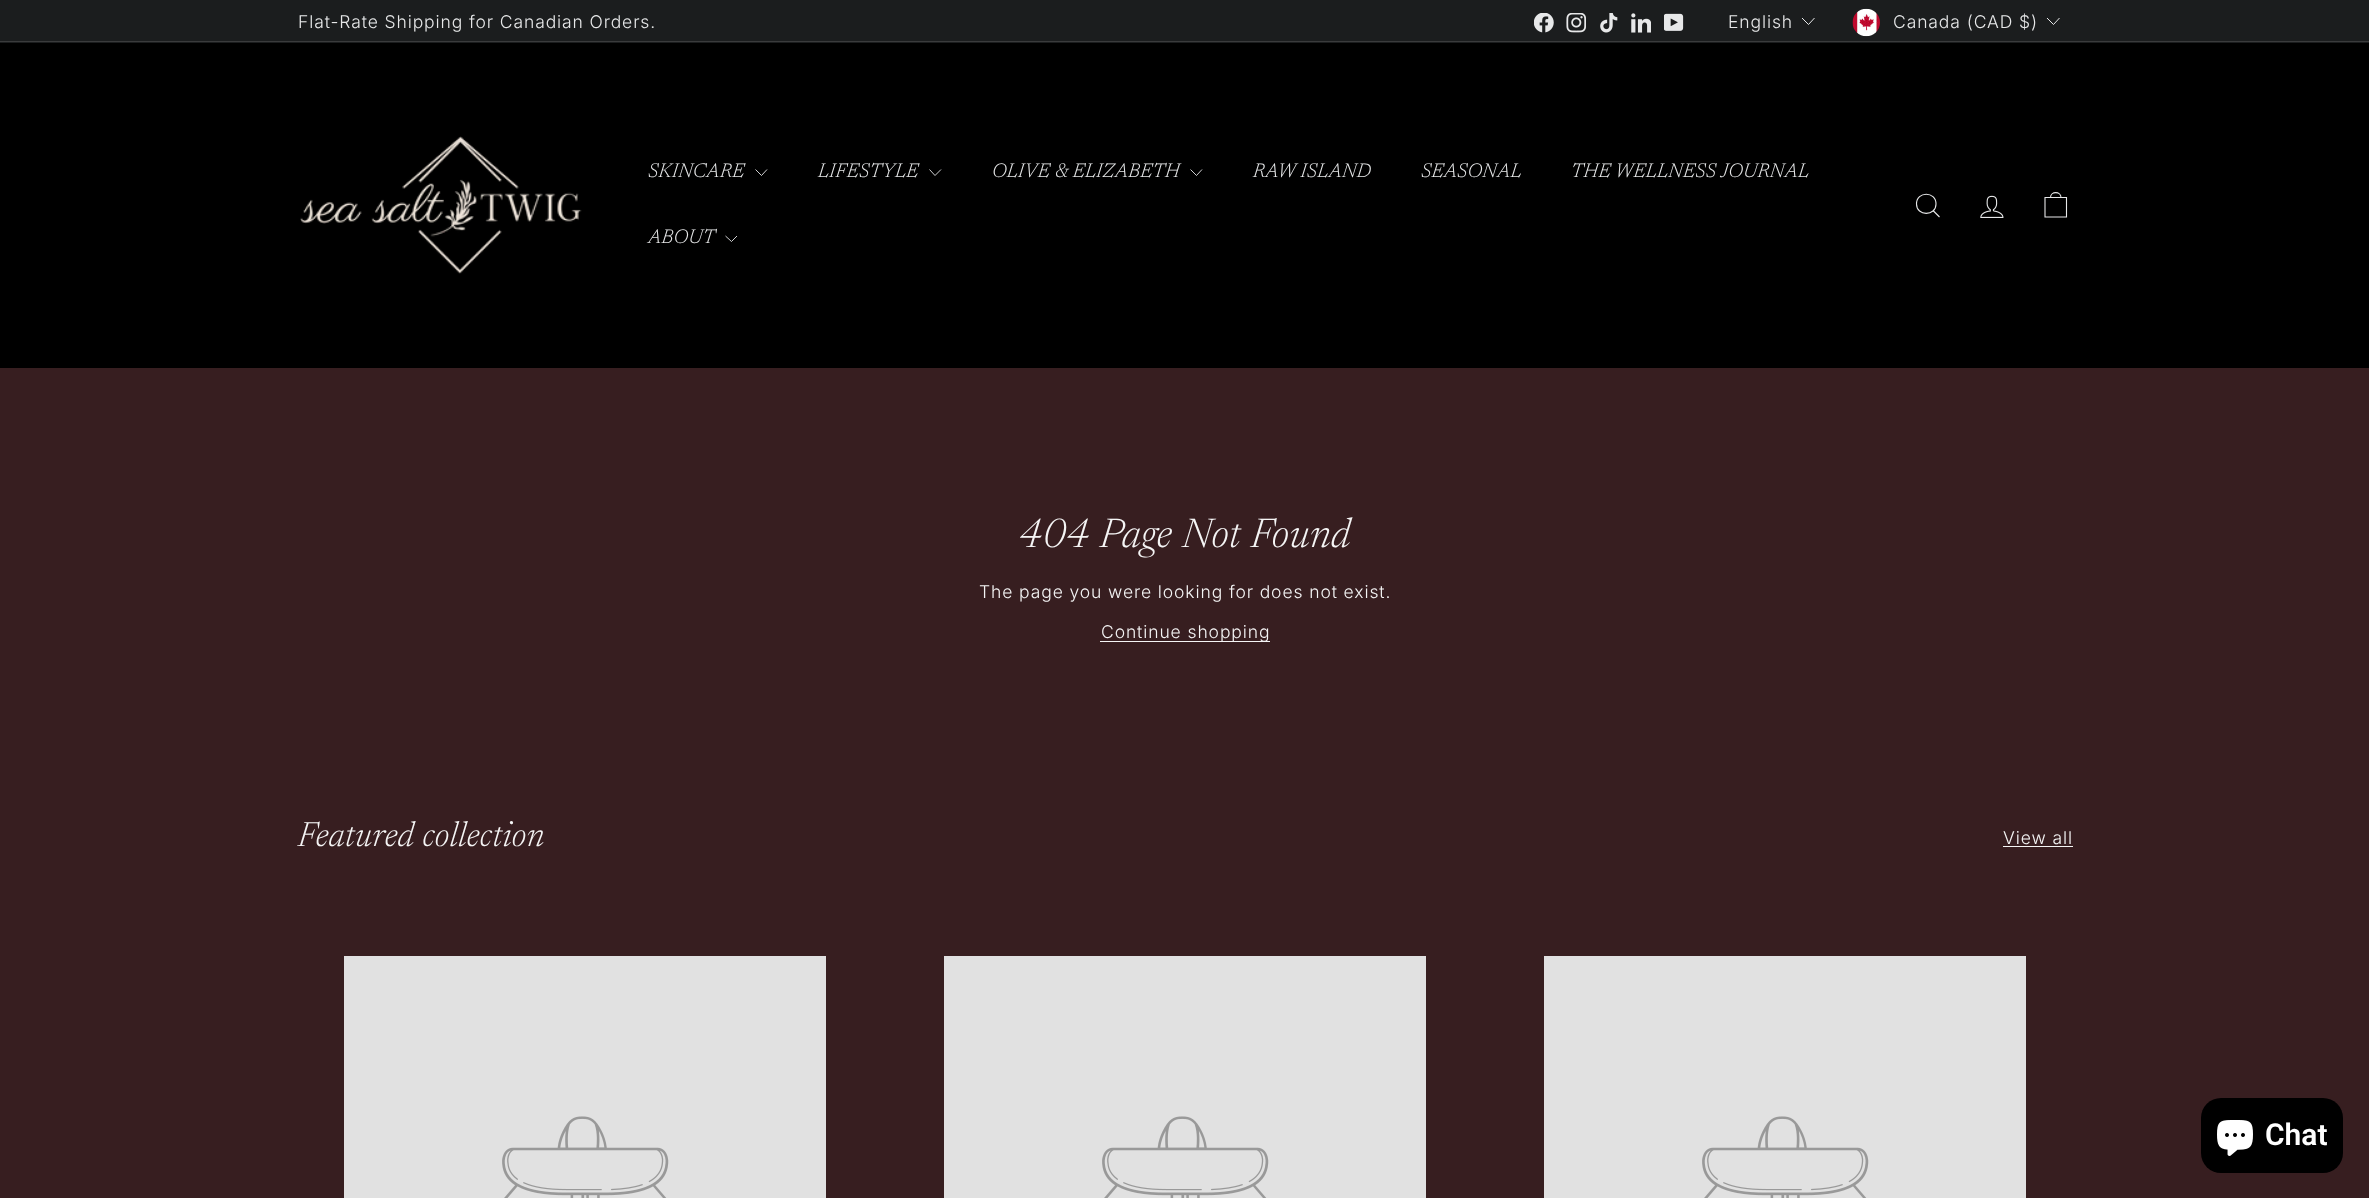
(async () => {
    const canvas = document.querySelector("canvas");
    canvas.width = 2369;
    canvas.height = 1198;
    const context = canvas.getContext("2d");
    context.miterLimit = 4;
    context.fontKerning = "normal";
    function write(s, x, y, font, color) {
        context.font = font;
        context.fillStyle = color;
        context.fillText(s, x, y);
    }
    function block(x, y, w, h, color) {
        context.fillStyle = color;
        context.fillRect(x, y, w, h);
    }
    function card(x, y, w, h, r, color) {
        context.fillStyle = color;
        context.beginPath();
        context.roundRect(x, y, w, h, r);
        context.fill();
    }
    async function photo(src, x, y, w, h) {
        const img = new Image();
        img.src = src;
        await img.decode();
        context.drawImage(img, x, y, w, h);
    }

    block(0, 0, 2369, 1198, "rgb(55, 30, 32)");
    block(0, 0, 2369, 43, "rgb(27, 29, 30)");
    context.letterSpacing = "0.9px";
    write("Flat-Rate Shipping for Canadian Orders.", 298, 28, "300 17.5px Inter", "rgb(231, 232, 233)");
    await photo("media/1.png", 1534, 13, 20, 20);
    await photo("media/2.png", 1566, 13, 20, 20);
    await photo("media/3.png", 1600, 13, 18, 20);
    await photo("media/4.png", 1631, 13, 20, 20);
    await photo("media/5.png", 1664, 13, 20, 18);
    write("English", 1728, 28, "300 17.5px Inter", "rgb(231, 232, 233)");
    context.beginPath();
    context.moveTo(1802, 18);
    context.lineTo(1808.5, 24.5);
    context.lineTo(1814.5, 18);
    context.strokeStyle = "rgb(231, 232, 233)";
    context.stroke();
    await photo("media/6.png", 1852, 8, 28, 29);
    write("Canada (CAD $)", 1893, 28, "300 17.5px Inter", "rgb(231, 232, 233)");
    context.beginPath();
    context.moveTo(2047, 18);
    context.lineTo(2053.5, 24.5);
    context.lineTo(2059.5, 18);
    context.stroke();
    block(0, 41, 2369, 1, "rgb(58, 59, 60)");
    block(0, 43, 2369, 325, "rgb(0, 0, 0)");
    await photo("media/7.png", 300, 136, 282, 138);
    context.letterSpacing = "0.2px";
    write("SKINCARE", 648, 177, "italic 300 20px 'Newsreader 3'", "rgb(231, 232, 233)");
    context.beginPath();
    context.moveTo(755.5, 169.5);
    context.lineTo(761.5, 175.5);
    context.lineTo(767, 169.5);
    context.lineWidth = 0.9;
    context.stroke();
    write("LIFESTYLE", 818, 177, "italic 300 20px 'Newsreader 3'", "rgb(231, 232, 233)");
    context.beginPath();
    context.moveTo(929.5, 169.5);
    context.lineTo(935, 175.5);
    context.lineTo(941, 169.5);
    context.stroke();
    write("OLIVE & ELIZABETH", 992, 177, "italic 300 20px 'Newsreader 3'", "rgb(231, 232, 233)");
    context.beginPath();
    context.moveTo(1190.5, 169.5);
    context.lineTo(1196.5, 175.5);
    context.lineTo(1202, 169.5);
    context.stroke();
    write("RAW ISLAND", 1253, 177, "italic 300 20px 'Newsreader 3'", "rgb(231, 232, 233)");
    write("SEASONAL", 1421, 177, "italic 300 20px 'Newsreader 3'", "rgb(231, 232, 233)");
    write("THE WELLNESS JOURNAL", 1571, 177, "italic 300 20px 'Newsreader 3'", "rgb(231, 232, 233)");
    write("ABOUT", 648, 243, "italic 300 20px 'Newsreader 3'", "rgb(231, 232, 233)");
    context.beginPath();
    context.moveTo(725.5, 236);
    context.lineTo(731.5, 241.5);
    context.lineTo(737, 236);
    context.stroke();
    context.beginPath();
    context.moveTo(1936, 204);
    context.bezierCurveTo(1936, 216.5, 1916.5, 216.5, 1916.5, 204);
    context.bezierCurveTo(1916.5, 191, 1936, 191, 1936, 204);
    context.moveTo(1939.5, 217);
    context.lineTo(1933.5, 211);
    context.lineWidth = 1.1;
    context.stroke();
    await photo("media/8.png", 1980, 195, 24, 23);
    context.beginPath();
    context.moveTo(2050.5, 197.5);
    context.bezierCurveTo(2050.5, 191, 2061, 191, 2061, 197.5);
    context.moveTo(2045, 197.5);
    context.lineTo(2066.5, 197.5);
    context.lineTo(2066.5, 217);
    context.lineTo(2045, 217);
    context.closePath();
    context.stroke();
    context.letterSpacing = "0.4px";
    write("404 Page Not Found", 1019, 547, "italic 300 41.25px Newsreader", "rgb(245, 245, 245)");
    context.letterSpacing = "0.9px";
    write("The page you were looking for does not exist.", 979, 598, "300 17.5px Inter", "rgb(245, 245, 245)");
    block(1100, 641, 170, 1, "rgb(245, 245, 245)");
    write("Continue shopping", 1101, 638, "300 17.5px Inter", "rgb(245, 245, 245)");
    context.letterSpacing = "0.3px";
    write("Featured collection", 298, 846, "italic 300 35px 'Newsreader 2'", "rgb(245, 245, 245)");
    context.letterSpacing = "0.9px";
    write("View all", 2003, 844, "300 17.5px Inter", "rgb(245, 245, 245)");
    block(2003, 846, 70, 1, "rgb(245, 245, 245)");
    block(344, 956, 482, 242, "rgb(225, 225, 225)");
    await photo("media/9.png", 502, 1116, 167, 82);
    block(944, 956, 482, 242, "rgb(225, 225, 225)");
    await photo("media/9.png", 1102, 1116, 167, 82);
    block(1544, 956, 482, 242, "rgb(225, 225, 225)");
    await photo("media/9.png", 1702, 1116, 167, 82);
    card(2201, 1098, 142, 75, 20, "rgb(0, 0, 0)");
    await photo("media/10.png", 2217, 1120, 36, 36);
    context.letterSpacing = "0px";
    write("Chat", 2265, 1145, "600 30px Roboto", "rgb(255, 255, 255)");
})();
